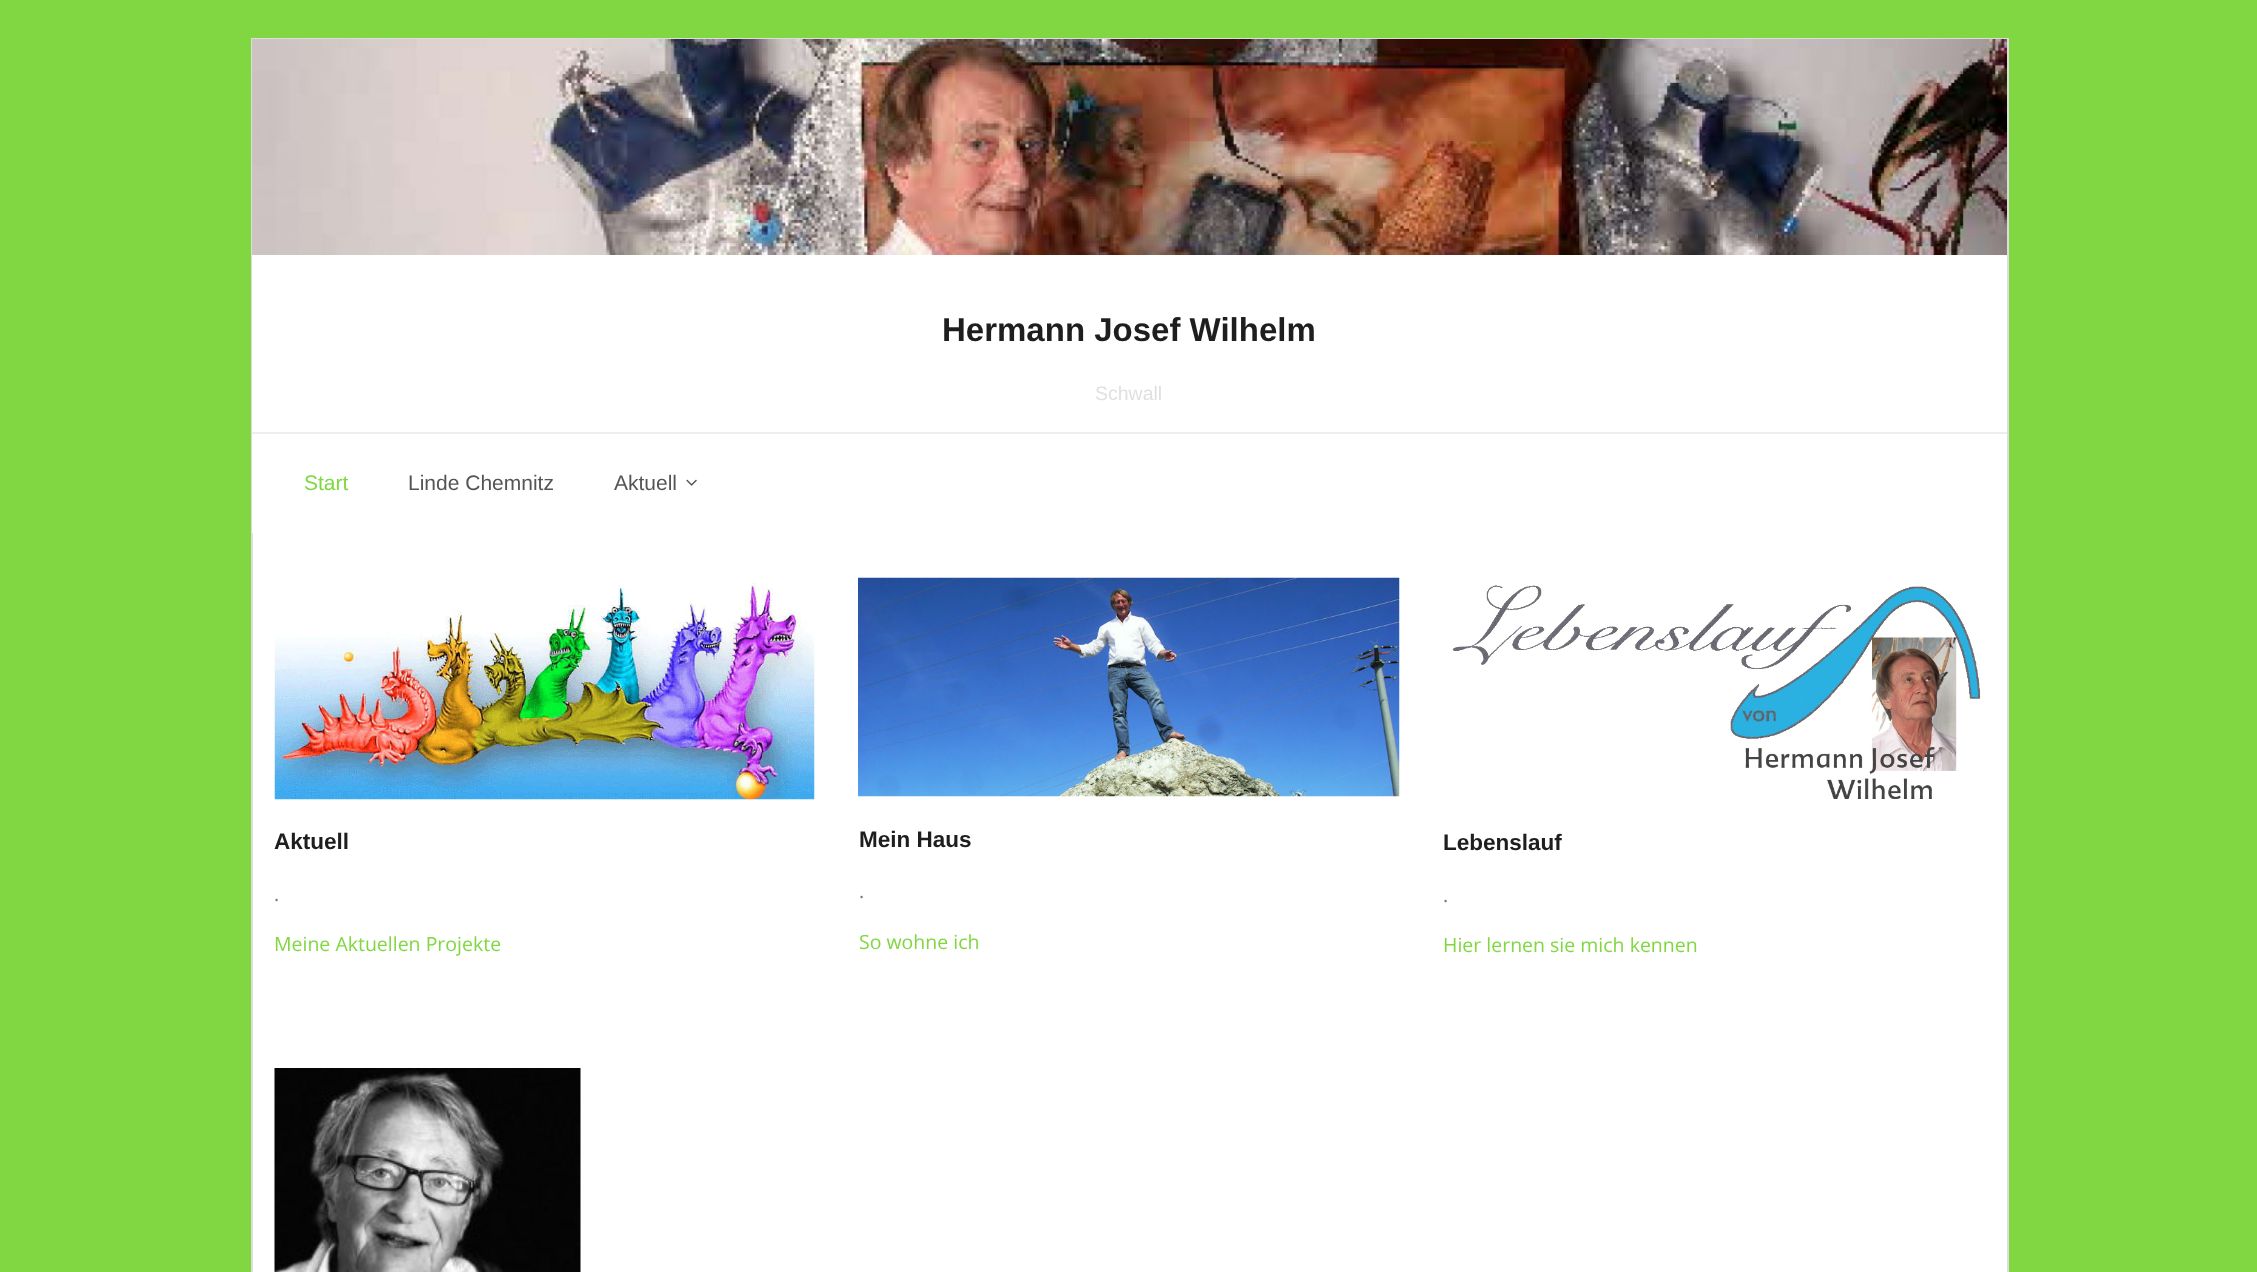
(async () => {
    const canvas = document.querySelector("canvas");
    canvas.width = 2257;
    canvas.height = 1272;
    const context = canvas.getContext("2d");
    context.miterLimit = 4;
    context.fontKerning = "normal";
    function write(s, x, y, font, color) {
        context.font = font;
        context.fillStyle = color;
        context.fillText(s, x, y);
    }
    function block(x, y, w, h, color) {
        context.fillStyle = color;
        context.fillRect(x, y, w, h);
    }
    async function photo(src, x, y, w, h) {
        const img = new Image();
        img.src = src;
        await img.decode();
        context.drawImage(img, x, y, w, h);
    }

    block(0, 0, 2257, 1272, "rgb(129, 215, 66)");
    block(253, 533, 1754, 739, "rgb(255, 255, 255)");
    context.strokeStyle = "rgb(221, 221, 221)";
    context.lineWidth = 2;
    context.strokeRect(252, 39, 1756, 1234);
    await photo("media/1.png", 252, 39, 1755, 216);
    block(252, 255, 1755, 278, "rgb(255, 255, 255)");
    write("Hermann Josef Wilhelm", 942, 341, "bold 33px Liberation Sans", "rgb(30, 30, 30)");
    write("Schwall", 1095, 400, "19.5px Liberation Sans", "rgb(224, 224, 224)");
    block(252, 432, 1755, 2, "rgb(238, 238, 238)");
    write("Start", 304, 490, "21px Liberation Sans", "rgb(129, 215, 66)");
    write("Linde Chemnitz", 408, 490, "21px Liberation Sans", "rgb(85, 85, 85)");
    write("Aktuell", 614, 490, "21px Liberation Sans", "rgb(85, 85, 85)");
    await photo("media/2.png", 686, 479, 11, 7);
    await photo("media/3.png", 274, 583, 541, 217);
    write("Aktuell", 274, 849, "bold 22.5px Liberation Sans", "rgb(30, 30, 30)");
    write(".", 274, 901, "19.5px Open Sans", "rgb(119, 119, 119)");
    write("Meine Aktuellen Projekte", 274, 951, "19.5px Open Sans", "rgb(129, 215, 66)");
    await photo("media/4.png", 858, 577, 542, 220);
    write("Mein Haus", 859, 847, "bold 22.5px Liberation Sans", "rgb(30, 30, 30)");
    write(".", 859, 898, "19.5px Open Sans", "rgb(119, 119, 119)");
    write("So wohne ich", 859, 949, "19.5px Open Sans", "rgb(129, 215, 66)");
    await photo("media/5.png", 1452, 585, 529, 214);
    write("Lebenslauf", 1443, 850, "bold 22.5px Liberation Sans", "rgb(30, 30, 30)");
    write(".", 1443, 902, "19.5px Open Sans", "rgb(119, 119, 119)");
    write("Hier lernen sie mich kennen", 1443, 952, "19.5px Open Sans", "rgb(129, 215, 66)");
    await photo("media/6.png", 274, 1068, 307, 204);
})();
